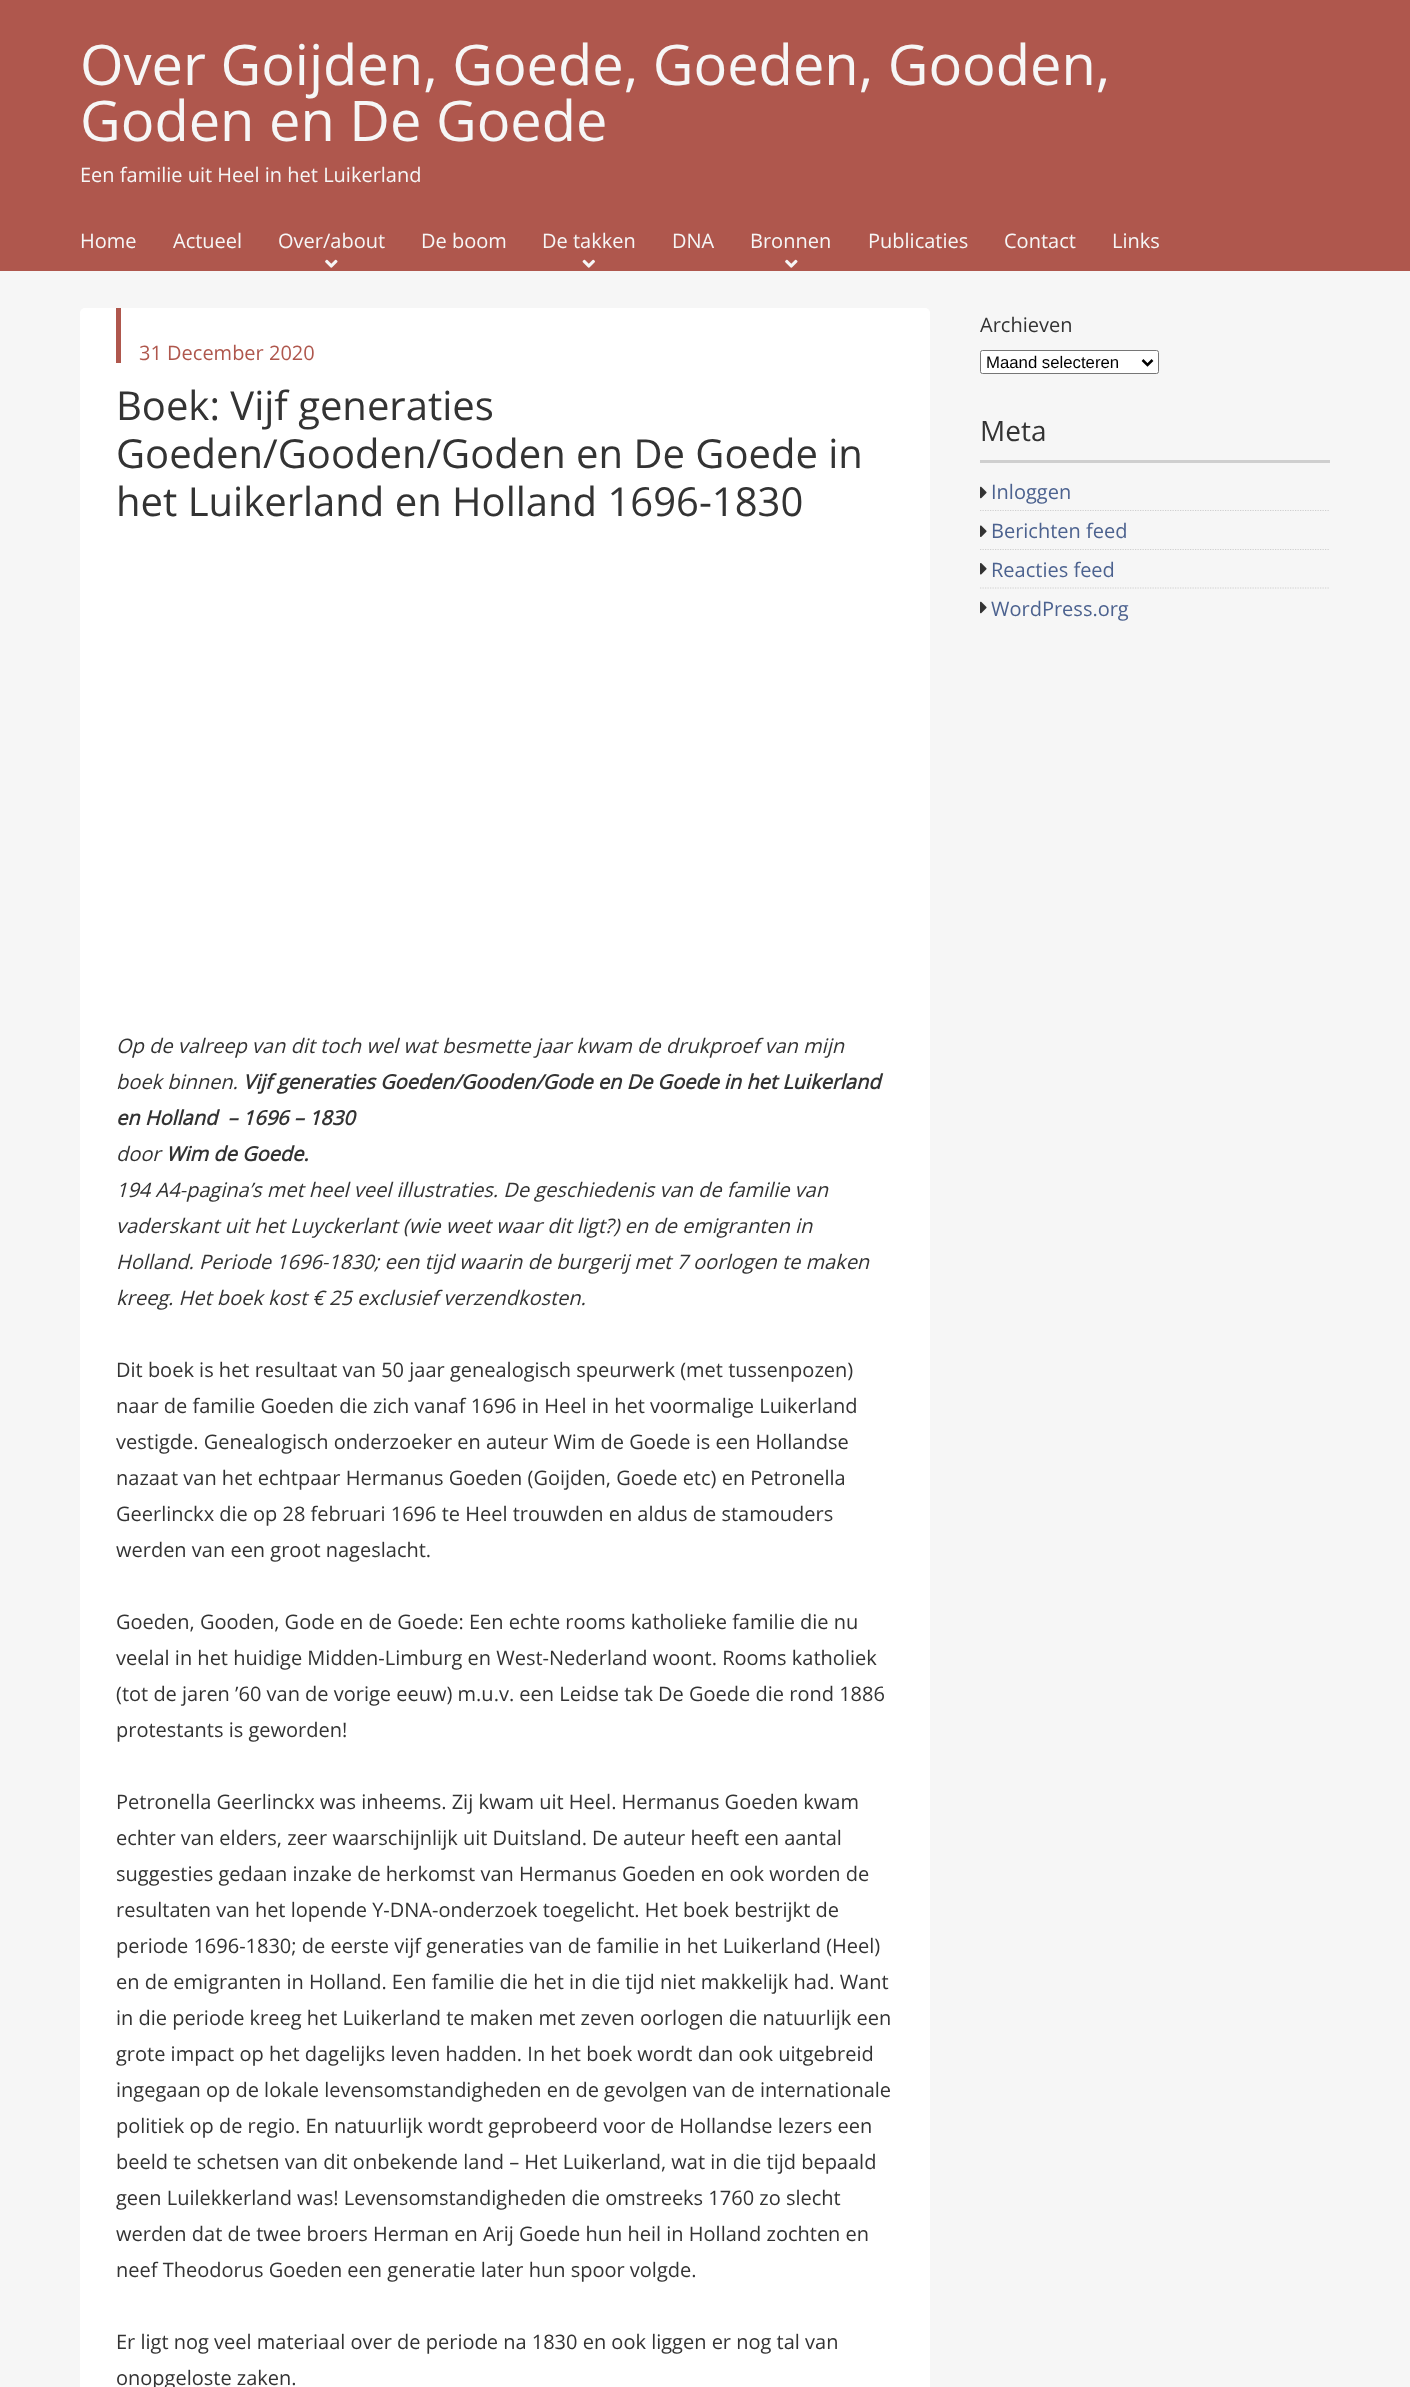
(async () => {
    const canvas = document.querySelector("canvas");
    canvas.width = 1410;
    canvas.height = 2387;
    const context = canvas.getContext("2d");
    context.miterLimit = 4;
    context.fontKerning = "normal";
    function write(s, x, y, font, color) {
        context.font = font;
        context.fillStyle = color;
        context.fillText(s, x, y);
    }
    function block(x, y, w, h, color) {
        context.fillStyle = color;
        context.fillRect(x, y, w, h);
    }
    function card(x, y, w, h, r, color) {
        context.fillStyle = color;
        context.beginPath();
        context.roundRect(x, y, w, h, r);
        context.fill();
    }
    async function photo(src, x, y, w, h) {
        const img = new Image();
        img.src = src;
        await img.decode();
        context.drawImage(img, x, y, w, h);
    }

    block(0, 0, 1410, 2387, "rgb(246, 246, 246)");
    block(0, 0, 1410, 271, "rgb(175, 87, 77)");
    write("Over Goijden, Goede, Goeden, Gooden,", 80, 85, "56px Open Sans", "rgb(246, 246, 246)");
    write("Goden en De Goede", 80, 141, "56px Open Sans", "rgb(246, 246, 246)");
    write("Een familie uit Heel in het Luikerland", 80, 182, "20px Open Sans", "rgb(246, 246, 246)");
    write("Home", 80, 248, "20px Open Sans", "rgb(246, 246, 246)");
    write("Actueel", 173, 248, "20px Open Sans", "rgb(246, 246, 246)");
    write("Over/about", 278, 248, "20px Open Sans", "rgb(246, 246, 246)");
    await photo("media/1.png", 325, 259, 13, 9);
    write("De boom", 421, 248, "20px Open Sans", "rgb(246, 246, 246)");
    write("De takken", 542, 248, "20px Open Sans", "rgb(246, 246, 246)");
    await photo("media/2.png", 582, 259, 13, 9);
    write("DNA", 672, 248, "20px Open Sans", "rgb(246, 246, 246)");
    write("Bronnen", 750, 248, "20px Open Sans", "rgb(246, 246, 246)");
    await photo("media/1.png", 785, 259, 13, 9);
    write("Publicaties", 868, 248, "20px Open Sans", "rgb(246, 246, 246)");
    write("Contact", 1004, 248, "20px Open Sans", "rgb(246, 246, 246)");
    write("Links", 1112, 248, "20px Open Sans", "rgb(246, 246, 246)");
    card(80, 308, 850, 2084, 5, "rgb(255, 255, 255)");
    block(116, 308, 5, 55, "rgb(175, 87, 77)");
    write("31 December 2020", 139, 360, "20px Open Sans", "rgb(175, 87, 77)");
    write("Boek: Vijf generaties", 116, 420, "40px Open Sans", "rgb(51, 51, 51)");
    write("Goeden/Gooden/Goden en De Goede in", 116, 468, "40px Open Sans", "rgb(51, 51, 51)");
    write("het Luikerland en Holland 1696-1830", 116, 516, "40px Open Sans", "rgb(51, 51, 51)");
    write("Op de valreep van dit toch wel wat besmette jaar kwam de drukproef van mijn", 116, 1053, "italic 20px Open Sans", "rgb(51, 51, 51)");
    write("boek binnen.", 116, 1089, "italic 20px Open Sans", "rgb(51, 51, 51)");
    write("Vijf generaties Goeden/Gooden/Gode en De Goede in het Luikerland", 243, 1089, "italic bold 20px Open Sans", "rgb(51, 51, 51)");
    write("en Holland  – 1696 – 1830", 116, 1125, "italic bold 20px Open Sans", "rgb(51, 51, 51)");
    write("door", 116, 1161, "italic 20px Open Sans", "rgb(51, 51, 51)");
    write("Wim de Goede.", 166, 1161, "italic bold 20px Open Sans", "rgb(51, 51, 51)");
    write("194 A4-pagina’s met heel veel illustraties. De geschiedenis van de familie van", 116, 1197, "italic 20px Open Sans", "rgb(51, 51, 51)");
    write("vaderskant uit het Luyckerlant (wie weet waar dit ligt?) en de emigranten in", 116, 1233, "italic 20px Open Sans", "rgb(51, 51, 51)");
    write("Holland. Periode 1696-1830; een tijd waarin de burgerij met 7 oorlogen te maken", 116, 1269, "italic 20px Open Sans", "rgb(51, 51, 51)");
    write("kreeg. Het boek kost € 25 exclusief verzendkosten.", 116, 1305, "italic 20px Open Sans", "rgb(51, 51, 51)");
    write("Dit boek is het resultaat van 50 jaar genealogisch speurwerk (met tussenpozen)", 116, 1377, "20px Open Sans", "rgb(51, 51, 51)");
    write("naar de familie Goeden die zich vanaf 1696 in Heel in het voormalige Luikerland", 116, 1413, "20px Open Sans", "rgb(51, 51, 51)");
    write("vestigde. Genealogisch onderzoeker en auteur Wim de Goede is een Hollandse", 116, 1449, "20px Open Sans", "rgb(51, 51, 51)");
    write("nazaat van het echtpaar Hermanus Goeden (Goijden, Goede etc) en Petronella", 116, 1485, "20px Open Sans", "rgb(51, 51, 51)");
    write("Geerlinckx die op 28 februari 1696 te Heel trouwden en aldus de stamouders", 116, 1521, "20px Open Sans", "rgb(51, 51, 51)");
    write("werden van een groot nageslacht.", 116, 1557, "20px Open Sans", "rgb(51, 51, 51)");
    write("Goeden, Gooden, Gode en de Goede: Een echte rooms katholieke familie die nu", 116, 1629, "20px Open Sans", "rgb(51, 51, 51)");
    write("veelal in het huidige Midden-Limburg en West-Nederland woont. Rooms katholiek", 116, 1665, "20px Open Sans", "rgb(51, 51, 51)");
    write("(tot de jaren ’60 van de vorige eeuw) m.u.v. een Leidse tak De Goede die rond 1886", 116, 1701, "20px Open Sans", "rgb(51, 51, 51)");
    write("protestants is geworden!", 116, 1737, "20px Open Sans", "rgb(51, 51, 51)");
    write("Petronella Geerlinckx was inheems. Zij kwam uit Heel. Hermanus Goeden kwam", 116, 1809, "20px Open Sans", "rgb(51, 51, 51)");
    write("echter van elders, zeer waarschijnlijk uit Duitsland. De auteur heeft een aantal", 116, 1845, "20px Open Sans", "rgb(51, 51, 51)");
    write("suggesties gedaan inzake de herkomst van Hermanus Goeden en ook worden de", 116, 1881, "20px Open Sans", "rgb(51, 51, 51)");
    write("resultaten van het lopende Y-DNA-onderzoek toegelicht. Het boek bestrijkt de", 116, 1917, "20px Open Sans", "rgb(51, 51, 51)");
    write("periode 1696-1830; de eerste vijf generaties van de familie in het Luikerland (Heel)", 116, 1953, "20px Open Sans", "rgb(51, 51, 51)");
    write("en de emigranten in Holland. Een familie die het in die tijd niet makkelijk had. Want", 116, 1989, "20px Open Sans", "rgb(51, 51, 51)");
    write("in die periode kreeg het Luikerland te maken met zeven oorlogen die natuurlijk een", 116, 2025, "20px Open Sans", "rgb(51, 51, 51)");
    write("grote impact op het dagelijks leven hadden. In het boek wordt dan ook uitgebreid", 116, 2061, "20px Open Sans", "rgb(51, 51, 51)");
    write("ingegaan op de lokale levensomstandigheden en de gevolgen van de internationale", 116, 2097, "20px Open Sans", "rgb(51, 51, 51)");
    write("politiek op de regio. En natuurlijk wordt geprobeerd voor de Hollandse lezers een", 116, 2133, "20px Open Sans", "rgb(51, 51, 51)");
    write("beeld te schetsen van dit onbekende land – Het Luikerland, wat in die tijd bepaald", 116, 2169, "20px Open Sans", "rgb(51, 51, 51)");
    write("geen Luilekkerland was! Levensomstandigheden die omstreeks 1760 zo slecht", 116, 2205, "20px Open Sans", "rgb(51, 51, 51)");
    write("werden dat de twee broers Herman en Arij Goede hun heil in Holland zochten en", 116, 2241, "20px Open Sans", "rgb(51, 51, 51)");
    write("neef Theodorus Goeden een generatie later hun spoor volgde.", 116, 2277, "20px Open Sans", "rgb(51, 51, 51)");
    write("Er ligt nog veel materiaal over de periode na 1830 en ook liggen er nog tal van", 116, 2349, "20px Open Sans", "rgb(51, 51, 51)");
    write("onopgeloste zaken.", 116, 2385, "20px Open Sans", "rgb(51, 51, 51)");
    write("Archieven", 980, 332, "20px Open Sans", "rgb(51, 51, 51)");
    context.fillStyle = "rgb(255, 255, 255)";
    context.beginPath();
    context.roundRect(980.5, 350.5, 178, 23, 2);
    context.fill();
    context.strokeStyle = "rgb(118, 118, 118)";
    context.stroke();
    context.beginPath();
    context.moveTo(1142.5, 360);
    context.lineTo(1147.5, 365);
    context.lineTo(1152.5, 360);
    context.strokeStyle = "rgb(0, 0, 0)";
    context.lineWidth = 2.5;
    context.stroke();
    write("Maand selecteren", 986, 368, "16.75px Liberation Sans", "rgb(0, 0, 0)");
    block(980, 460, 350, 3, "rgb(207, 207, 207)");
    write("Meta", 980, 441, "28px Open Sans", "rgb(51, 51, 51)");
    await photo("media/3.png", 980, 486, 7, 13);
    write("Inloggen", 991, 499, "20px Open Sans", "rgb(76, 98, 143)");
    context.beginPath();
    context.moveTo(980, 510.5);
    context.lineTo(1330, 510.5);
    context.strokeStyle = "rgb(207, 207, 207)";
    context.lineWidth = 1.2;
    context.setLineDash([1.25, 1.25]);
    context.stroke();
    await photo("media/4.png", 980, 525, 7, 12);
    write("Berichten feed", 991, 538, "20px Open Sans", "rgb(76, 98, 143)");
    context.beginPath();
    context.moveTo(980, 549.5);
    context.lineTo(1330, 549.5);
    context.stroke();
    await photo("media/5.png", 980, 563, 7, 12);
    write("Reacties feed", 991, 577, "20px Open Sans", "rgb(76, 98, 143)");
    context.beginPath();
    context.moveTo(980, 588);
    context.lineTo(1330, 588);
    context.stroke();
    await photo("media/3.png", 980, 601, 7, 13);
    write("WordPress.org", 991, 616, "20px Open Sans", "rgb(76, 98, 143)");
})();
